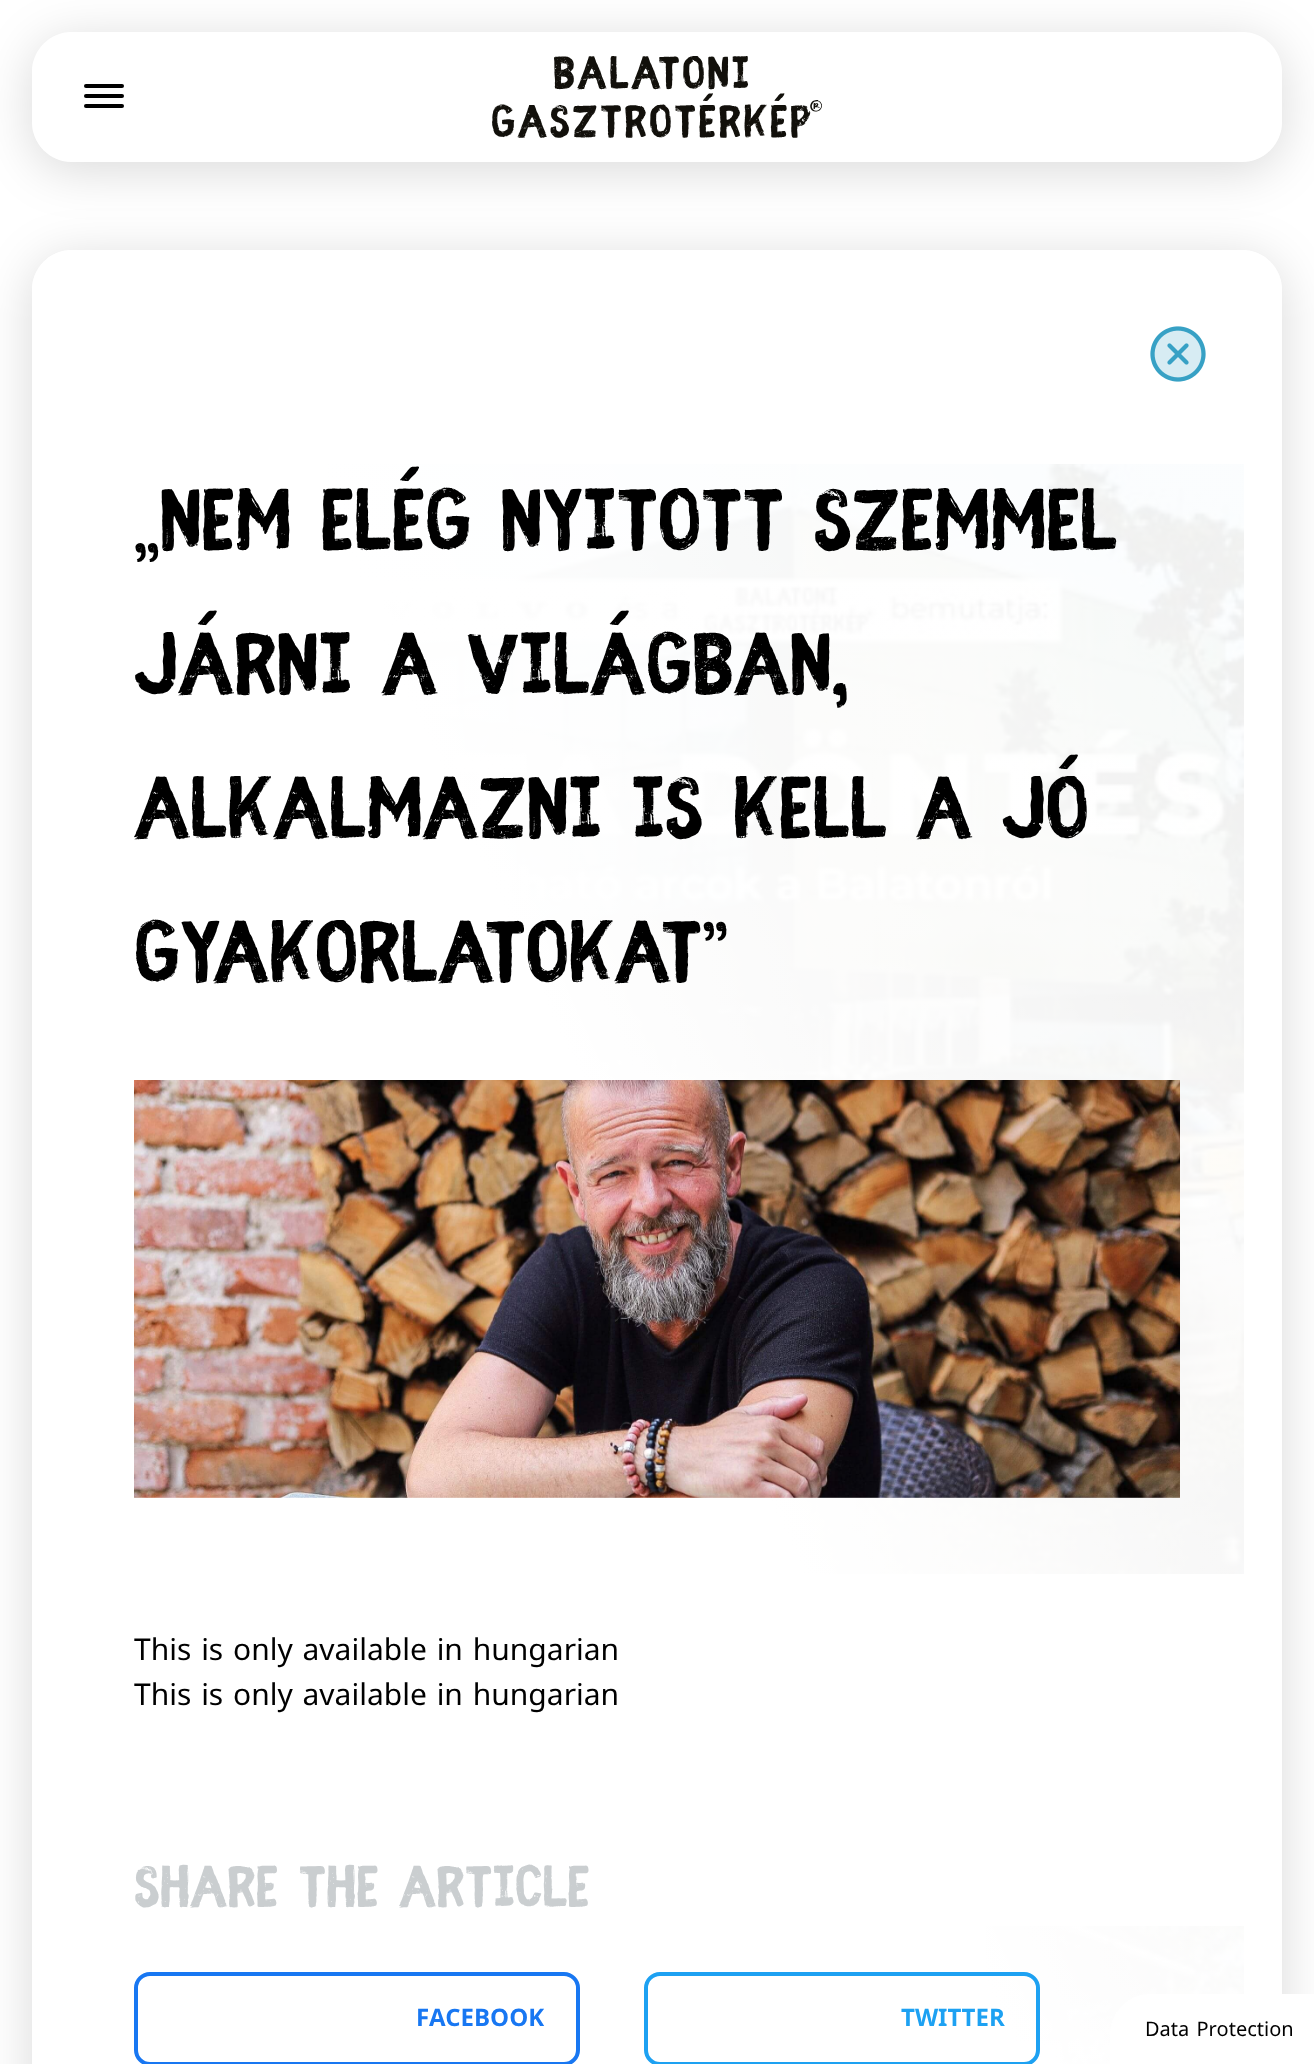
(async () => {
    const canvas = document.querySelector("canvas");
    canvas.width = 1314;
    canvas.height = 2064;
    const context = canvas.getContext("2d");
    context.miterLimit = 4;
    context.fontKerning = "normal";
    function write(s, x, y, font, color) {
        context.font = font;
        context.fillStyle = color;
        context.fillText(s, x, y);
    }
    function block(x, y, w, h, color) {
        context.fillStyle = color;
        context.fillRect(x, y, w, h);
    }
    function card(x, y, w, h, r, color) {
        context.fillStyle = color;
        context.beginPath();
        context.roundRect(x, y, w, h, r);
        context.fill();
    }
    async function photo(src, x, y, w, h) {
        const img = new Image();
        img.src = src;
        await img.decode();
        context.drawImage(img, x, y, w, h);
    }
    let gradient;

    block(0, 0, 1314, 2064, "rgb(255, 255, 255)");
    context.save();
    context.beginPath();
    context.moveTo(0, 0);
    context.lineTo(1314, 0);
    context.lineTo(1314, 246);
    context.lineTo(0, 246);
    context.closePath();
    context.moveTo(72, 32);
    context.lineTo(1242, 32);
    context.bezierCurveTo(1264, 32, 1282, 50, 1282, 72);
    context.lineTo(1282, 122);
    context.bezierCurveTo(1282, 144, 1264, 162, 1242, 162);
    context.lineTo(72, 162);
    context.bezierCurveTo(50, 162, 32, 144, 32, 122);
    context.lineTo(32, 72);
    context.bezierCurveTo(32, 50, 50, 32, 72, 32);
    context.closePath();
    context.clip("evenodd");
    context.fillStyle = "rgba(0, 0, 0, 0.15)";
    context.filter = "blur(25px)";
    context.beginPath();
    context.roundRect(32, 40, 1250, 130, 40);
    context.fill();
    context.filter = "none";
    context.restore();
    card(32, 32, 1250, 130, 40, "rgba(255, 255, 255, 0.7)");
    card(84, 94, 40, 4, 2, "rgb(0, 0, 0)");
    card(84, 84, 40, 4, 2, "rgb(0, 0, 0)");
    card(84, 104, 40, 4, 2, "rgb(0, 0, 0)");
    await photo("media/1.png", 492, 56, 330, 82);
    await photo("media/2.png", 327, 464, 917, 1110);
    await photo("media/3.png", 986, 1926, 258, 138);
    context.save();
    context.beginPath();
    context.moveTo(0, 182);
    context.lineTo(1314, 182);
    context.lineTo(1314, 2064);
    context.lineTo(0, 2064);
    context.closePath();
    context.moveTo(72, 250);
    context.lineTo(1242, 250);
    context.bezierCurveTo(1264, 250, 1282, 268, 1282, 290);
    context.lineTo(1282, 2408);
    context.bezierCurveTo(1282, 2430, 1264, 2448, 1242, 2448);
    context.lineTo(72, 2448);
    context.bezierCurveTo(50, 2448, 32, 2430, 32, 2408);
    context.lineTo(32, 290);
    context.bezierCurveTo(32, 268, 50, 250, 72, 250);
    context.closePath();
    context.clip("evenodd");
    context.fillStyle = "rgba(0, 0, 0, 0.15)";
    context.filter = "blur(25px)";
    context.beginPath();
    context.roundRect(32, 258, 1250, 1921, 40);
    context.fill();
    context.filter = "none";
    context.restore();
    context.save();
    context.beginPath();
    context.roundRect(32, 250, 1250, 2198, 40);
    context.clip();
    gradient = context.createLinearGradient(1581, 932, -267, 1766);
    gradient.addColorStop(0.11, "rgba(255, 255, 255, 0.8)");
    gradient.addColorStop(0.48, "rgb(255, 255, 255)");
    context.fillStyle = gradient;
    context.fillRect(38, 256, 1238, 1808);
    context.restore();
    context.beginPath();
    context.roundRect(35, 253, 1244, 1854, 37);
    context.strokeStyle = "rgb(255, 255, 255)";
    context.lineWidth = 6;
    context.stroke();
    await photo("media/4.png", 1150, 326, 56, 56);
    context.wordSpacing = "2px";
    write("„Nem elég nyitott szemmel", 134, 552, "bold 96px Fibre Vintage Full", "rgb(0, 0, 0)");
    write("járni a világban,", 134, 696, "bold 96px Fibre Vintage Full", "rgb(0, 0, 0)");
    write("alkalmazni is kell a jó", 134, 840, "bold 96px Fibre Vintage Full", "rgb(0, 0, 0)");
    context.wordSpacing = "0px";
    write("gyakorlatokat”", 134, 984, "bold 96px Fibre Vintage Full", "rgb(0, 0, 0)");
    await photo("media/5.png", 134, 1080, 1046, 418);
    context.wordSpacing = "2px";
    write("This is only available in hungarian", 134, 1660, "30px Noto Sans", "rgb(0, 0, 0)");
    write("This is only available in hungarian", 134, 1705, "30px Noto Sans", "rgb(0, 0, 0)");
    write("Share the article", 134, 1908, "bold 64px Fibre Vintage Full", "rgb(202, 206, 208)");
    context.beginPath();
    context.roundRect(136, 1974, 442, 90, 14);
    context.strokeStyle = "rgb(24, 119, 242)";
    context.lineWidth = 4;
    context.stroke();
    context.wordSpacing = "0px";
    write("FACEBOOK", 416, 2026, "bold 24px Noto Sans", "rgb(24, 119, 242)");
    context.beginPath();
    context.roundRect(646, 1974, 392, 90, 14);
    context.strokeStyle = "rgb(29, 161, 242)";
    context.stroke();
    write("TWITTER", 901, 2026, "bold 24px Noto Sans", "rgb(29, 161, 242)");
    context.fillStyle = "rgb(255, 255, 255)";
    context.beginPath();
    context.roundRect(1110, 1994, 204, 70, [40, 0, 0, 0]);
    context.fill();
    context.wordSpacing = "2px";
    write("Data Protection", 1145, 2036, "20px Noto Sans", "rgb(0, 0, 0)");
})();
